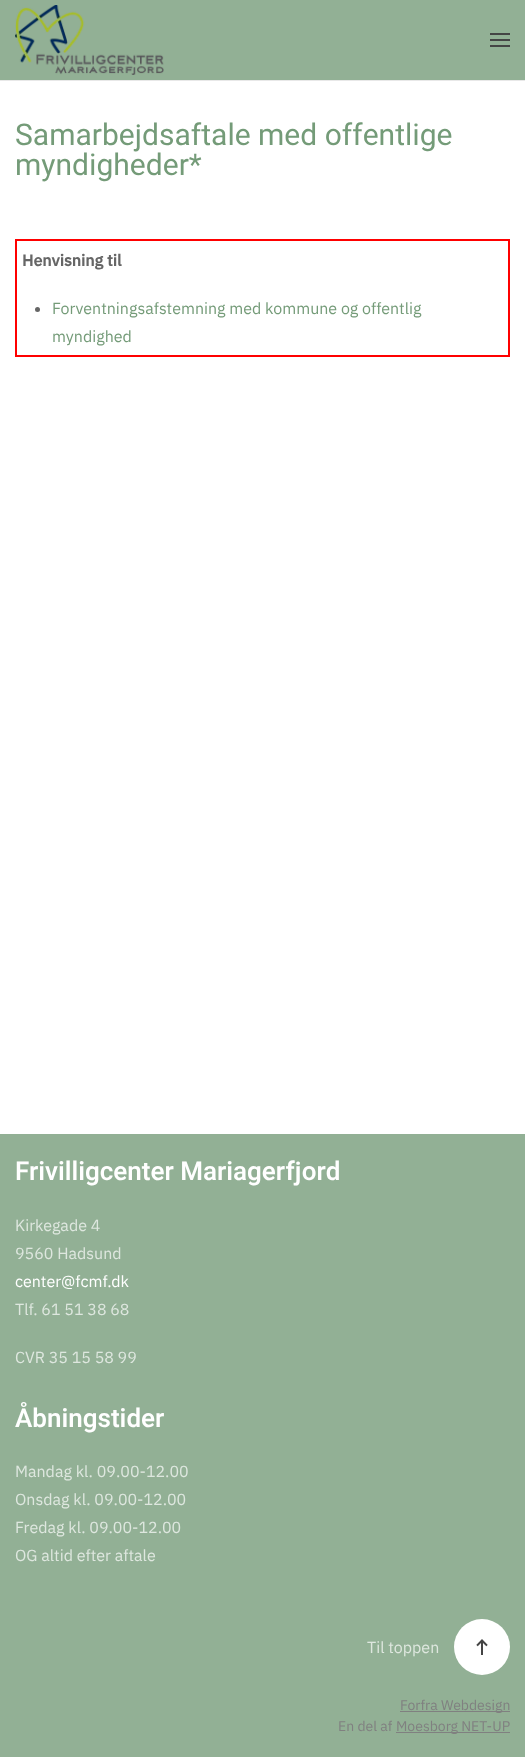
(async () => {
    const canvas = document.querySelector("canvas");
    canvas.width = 525;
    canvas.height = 1757;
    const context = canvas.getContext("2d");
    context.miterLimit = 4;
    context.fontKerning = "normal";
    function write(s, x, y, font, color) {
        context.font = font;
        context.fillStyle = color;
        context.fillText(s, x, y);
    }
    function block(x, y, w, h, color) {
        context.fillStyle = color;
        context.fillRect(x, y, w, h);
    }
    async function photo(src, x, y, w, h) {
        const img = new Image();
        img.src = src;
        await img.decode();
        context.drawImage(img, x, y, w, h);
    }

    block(0, 0, 525, 1757, "rgb(255, 255, 255)");
    block(0, 0, 525, 80, "rgb(146, 176, 149)");
    block(0, 80, 525, 1, "rgb(232, 232, 232)");
    await photo("media/1.png", 15, 5, 149, 70);
    block(490, 33, 20, 2, "rgb(68, 68, 68)");
    block(490, 39, 20, 2, "rgb(68, 68, 68)");
    block(490, 45, 20, 2, "rgb(68, 68, 68)");
    write("Samarbejdsaftale med offentlige", 15, 145, "30px Heebo", "rgb(116, 155, 120)");
    write("myndigheder*", 15, 175, "30px Heebo", "rgb(116, 155, 120)");
    context.strokeStyle = "rgb(255, 0, 0)";
    context.lineWidth = 2;
    context.strokeRect(16, 240, 493, 116);
    write("Henvisning til", 22, 266, "bold 16px IBM Plex Sans", "rgb(102, 102, 102)");
    context.beginPath();
    context.arc(37.5, 309.5, 2.5, 0, Math.PI * 2);
    context.fill();
    write("Forventningsafstemning med kommune og offentlig", 52, 314, "16px IBM Plex Sans", "rgb(116, 155, 120)");
    write("myndighed", 52, 342, "16px IBM Plex Sans", "rgb(116, 155, 120)");
    block(0, 1134, 525, 623, "rgb(146, 176, 149)");
    write("Frivilligcenter Mariagerfjord", 15, 1180, "600 26px Heebo", "rgb(255, 255, 255)");
    write("Kirkegade 4", 15, 1231, "16px IBM Plex Sans", "rgb(222, 231, 223)");
    write("9560 Hadsund", 15, 1259, "16px IBM Plex Sans", "rgb(222, 231, 223)");
    write("center@fcmf.dk", 15, 1287, "16px IBM Plex Sans", "rgb(255, 255, 255)");
    write("Tlf. 61 51 38 68", 15, 1315, "16px IBM Plex Sans", "rgb(222, 231, 223)");
    write("CVR 35 15 58 99", 15, 1363, "16px IBM Plex Sans", "rgb(222, 231, 223)");
    write("Åbningstider", 15, 1427, "600 26px Heebo", "rgb(255, 255, 255)");
    write("Mandag kl. 09.00-12.00", 15, 1477, "16px IBM Plex Sans", "rgb(222, 231, 223)");
    write("Onsdag kl. 09.00-12.00", 15, 1505, "16px IBM Plex Sans", "rgb(222, 231, 223)");
    write("Fredag kl. 09.00-12.00", 15, 1533, "16px IBM Plex Sans", "rgb(222, 231, 223)");
    write("OG altid efter aftale", 15, 1561, "16px IBM Plex Sans", "rgb(222, 231, 223)");
    write("Til toppen", 367, 1653, "16px IBM Plex Sans", "rgb(222, 231, 223)");
    context.fillStyle = "rgb(255, 255, 255)";
    context.beginPath();
    context.arc(482, 1647, 28, 0, Math.PI * 2);
    context.fill();
    await photo("media/2.png", 476, 1639, 12, 16);
    block(400, 1711, 110, 1, "rgb(128, 128, 128)");
    write("Forfra Webdesign", 400, 1710, "14px IBM Plex Sans", "rgb(128, 128, 128)");
    write("En del af", 338, 1731, "14px IBM Plex Sans", "rgb(128, 128, 128)");
    block(396, 1732, 114, 1, "rgb(128, 128, 128)");
    write("Moesborg NET-UP", 396, 1731, "14px IBM Plex Sans", "rgb(128, 128, 128)");
})();
